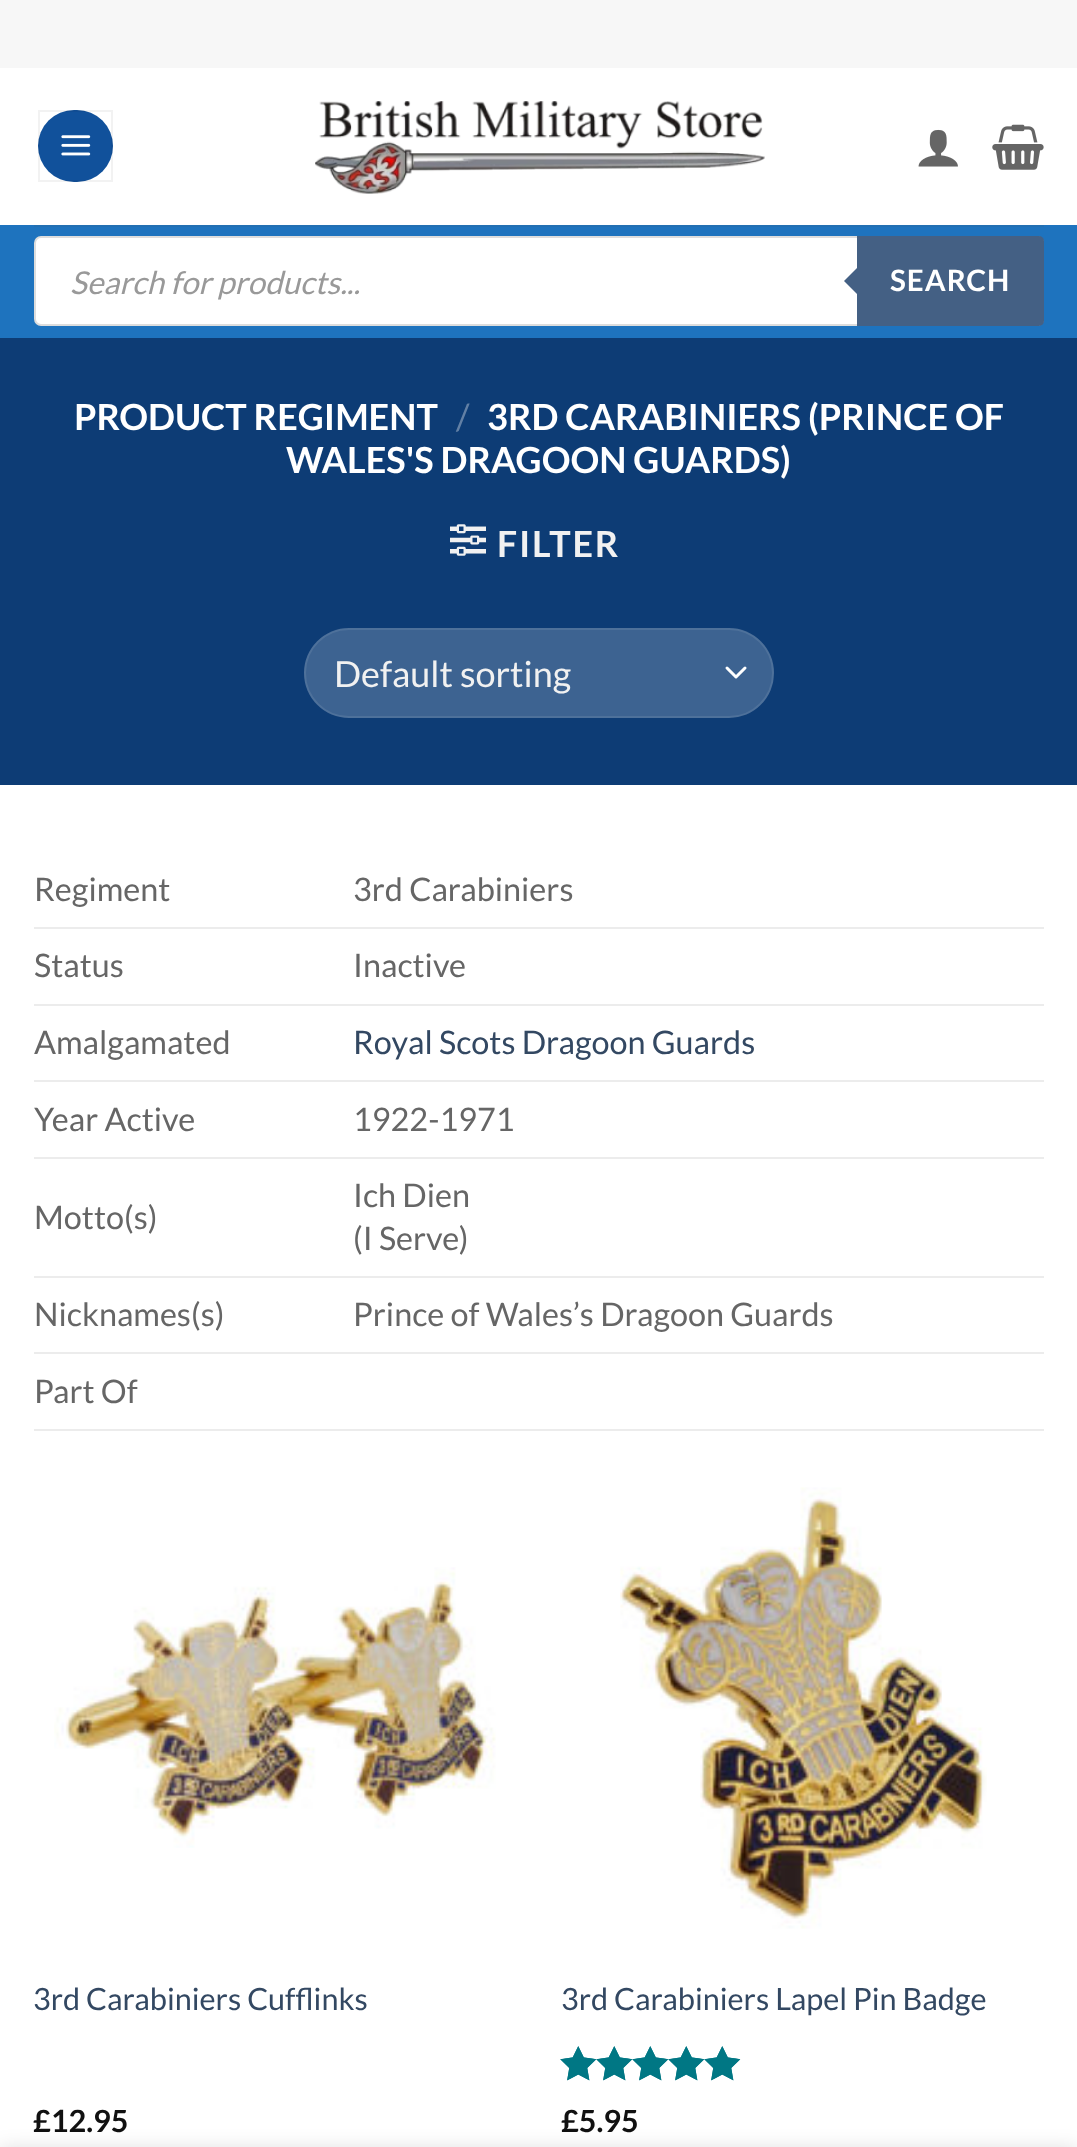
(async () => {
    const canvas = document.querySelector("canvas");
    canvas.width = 1077;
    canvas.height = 2147;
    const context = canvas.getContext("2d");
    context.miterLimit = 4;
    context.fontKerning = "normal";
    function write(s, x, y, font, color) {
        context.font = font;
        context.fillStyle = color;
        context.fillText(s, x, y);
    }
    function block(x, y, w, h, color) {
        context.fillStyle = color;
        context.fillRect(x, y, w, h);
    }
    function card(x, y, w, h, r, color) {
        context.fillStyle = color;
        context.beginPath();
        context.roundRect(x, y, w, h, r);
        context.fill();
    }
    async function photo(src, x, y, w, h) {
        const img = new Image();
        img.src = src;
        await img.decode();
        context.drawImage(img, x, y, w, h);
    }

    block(0, 0, 1077, 2147, "rgb(255, 255, 255)");
    block(0, 0, 1077, 68, "rgb(247, 247, 247)");
    card(38, 110, 75, 72, 36, "rgb(17, 81, 155)");
    context.strokeStyle = "rgba(0, 0, 0, 0.05)";
    context.lineWidth = 2;
    context.strokeRect(39, 111, 73, 70);
    await photo("media/1.png", 61, 135, 30, 21);
    await photo("media/2.png", 315, 101, 450, 93);
    await photo("media/3.png", 918, 129, 40, 38);
    await photo("media/4.png", 992, 124, 52, 46);
    block(0, 225, 1077, 113, "rgb(30, 115, 190)");
    block(34, 225, 1010, 2, "rgb(34, 111, 178)");
    context.fillStyle = "rgb(255, 255, 255)";
    context.beginPath();
    context.roundRect(35, 237, 1008, 88, 6);
    context.fill();
    context.strokeStyle = "rgb(221, 221, 221)";
    context.stroke();
    write("Search for products...", 70, 294, "italic 31.5px Lato", "rgb(153, 153, 153)");
    context.fillStyle = "rgb(68, 96, 132)";
    context.beginPath();
    context.roundRect(857, 236, 187, 90, [0, 5, 5, 0]);
    context.fill();
    context.beginPath();
    context.moveTo(862, 263);
    context.lineTo(862, 299);
    context.lineTo(844, 281);
    context.closePath();
    context.fill();
    context.letterSpacing = "1px";
    write("SEARCH", 890, 291, "bold 29.5px Lato", "rgb(255, 255, 255)");
    block(0, 338, 1077, 447, "rgb(13, 60, 117)");
    context.letterSpacing = "0px";
    write("PRODUCT REGIMENT", 74, 430, "bold 36px Lato", "rgb(255, 255, 255)");
    write("/", 456, 430, "36px Lato", "rgb(98, 128, 165)");
    write("3RD CARABINIERS (PRINCE OF", 487, 430, "bold 36px Lato", "rgb(255, 255, 255)");
    write("WALES'S DRAGOON GUARDS)", 286, 473, "bold 36px Lato", "rgb(255, 255, 255)");
    await photo("media/5.png", 450, 524, 36, 32);
    context.letterSpacing = "1.75px";
    write("FILTER", 497, 557, "bold 36px Lato", "rgb(241, 241, 241)");
    card(304, 628, 470, 90, 45, "rgb(61, 99, 145)");
    context.beginPath();
    context.moveTo(727, 668);
    context.lineTo(736, 677);
    context.lineTo(745, 668);
    context.strokeStyle = "rgb(255, 255, 255)";
    context.lineWidth = 3;
    context.lineCap = "round";
    context.lineJoin = "round";
    context.stroke();
    context.beginPath();
    context.roundRect(305, 629, 468, 88, 44);
    context.strokeStyle = "rgba(255, 255, 255, 0.09)";
    context.lineWidth = 2;
    context.lineJoin = "miter";
    context.stroke();
    context.letterSpacing = "0px";
    write("Default sorting", 334, 687, "36px Lato", "rgb(241, 241, 241)");
    block(34, 927, 1010, 2, "rgb(236, 236, 236)");
    write("Regiment", 34, 901, "32.4px Lato", "rgb(102, 102, 102)");
    write("3rd Carabiniers", 353, 901, "32.4px Lato", "rgb(102, 102, 102)");
    block(34, 1004, 1010, 2, "rgb(236, 236, 236)");
    write("Status", 34, 977, "32.4px Lato", "rgb(102, 102, 102)");
    write("Inactive", 353, 977, "32.4px Lato", "rgb(102, 102, 102)");
    block(34, 1080, 1010, 2, "rgb(236, 236, 236)");
    write("Amalgamated", 34, 1054, "32.4px Lato", "rgb(102, 102, 102)");
    write("Royal Scots Dragoon Guards", 353, 1054, "32.4px Lato", "rgb(51, 72, 98)");
    block(34, 1157, 1010, 2, "rgb(236, 236, 236)");
    write("Year Active", 34, 1131, "32.4px Lato", "rgb(102, 102, 102)");
    write("1922-1971", 353, 1131, "32.4px Lato", "rgb(102, 102, 102)");
    block(34, 1276, 1010, 2, "rgb(236, 236, 236)");
    write("Motto(s)", 34, 1229, "32.4px Lato", "rgb(102, 102, 102)");
    write("Ich Dien", 353, 1207, "32.4px Lato", "rgb(102, 102, 102)");
    write("(I Serve)", 353, 1250, "32.4px Lato", "rgb(102, 102, 102)");
    block(34, 1352, 1010, 2, "rgb(236, 236, 236)");
    write("Nicknames(s)", 34, 1326, "32.4px Lato", "rgb(102, 102, 102)");
    write("Prince of Wales’s Dragoon Guards", 353, 1326, "32.4px Lato", "rgb(102, 102, 102)");
    block(34, 1429, 1010, 2, "rgb(236, 236, 236)");
    write("Part Of", 34, 1403, "32.4px Lato", "rgb(102, 102, 102)");
    await photo("media/6.png", 54, 1567, 442, 281);
    write("3rd Carabiniers Cufflinks", 33, 2010, "30.6px Lato", "rgb(51, 72, 98)");
    write("£12.95", 33, 2132, "bold 30.6px Lato", "rgb(17, 17, 17)");
    await photo("media/7.png", 620, 1487, 367, 442);
    write("3rd Carabiniers Lapel Pin Badge", 561, 2010, "30.6px Lato", "rgb(51, 72, 98)");
    await photo("media/8.png", 560, 2046, 181, 35);
    await photo("media/9.png", 560, 2046, 181, 35);
    write("£5.95", 561, 2132, "bold 30.6px Lato", "rgb(17, 17, 17)");
    context.fillStyle = "rgba(0, 0, 0, 0.14)";
    context.filter = "blur(10px)";
    context.beginPath();
    context.rect(0, 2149, 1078, 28);
    context.fill();
    context.filter = "none";
})();
